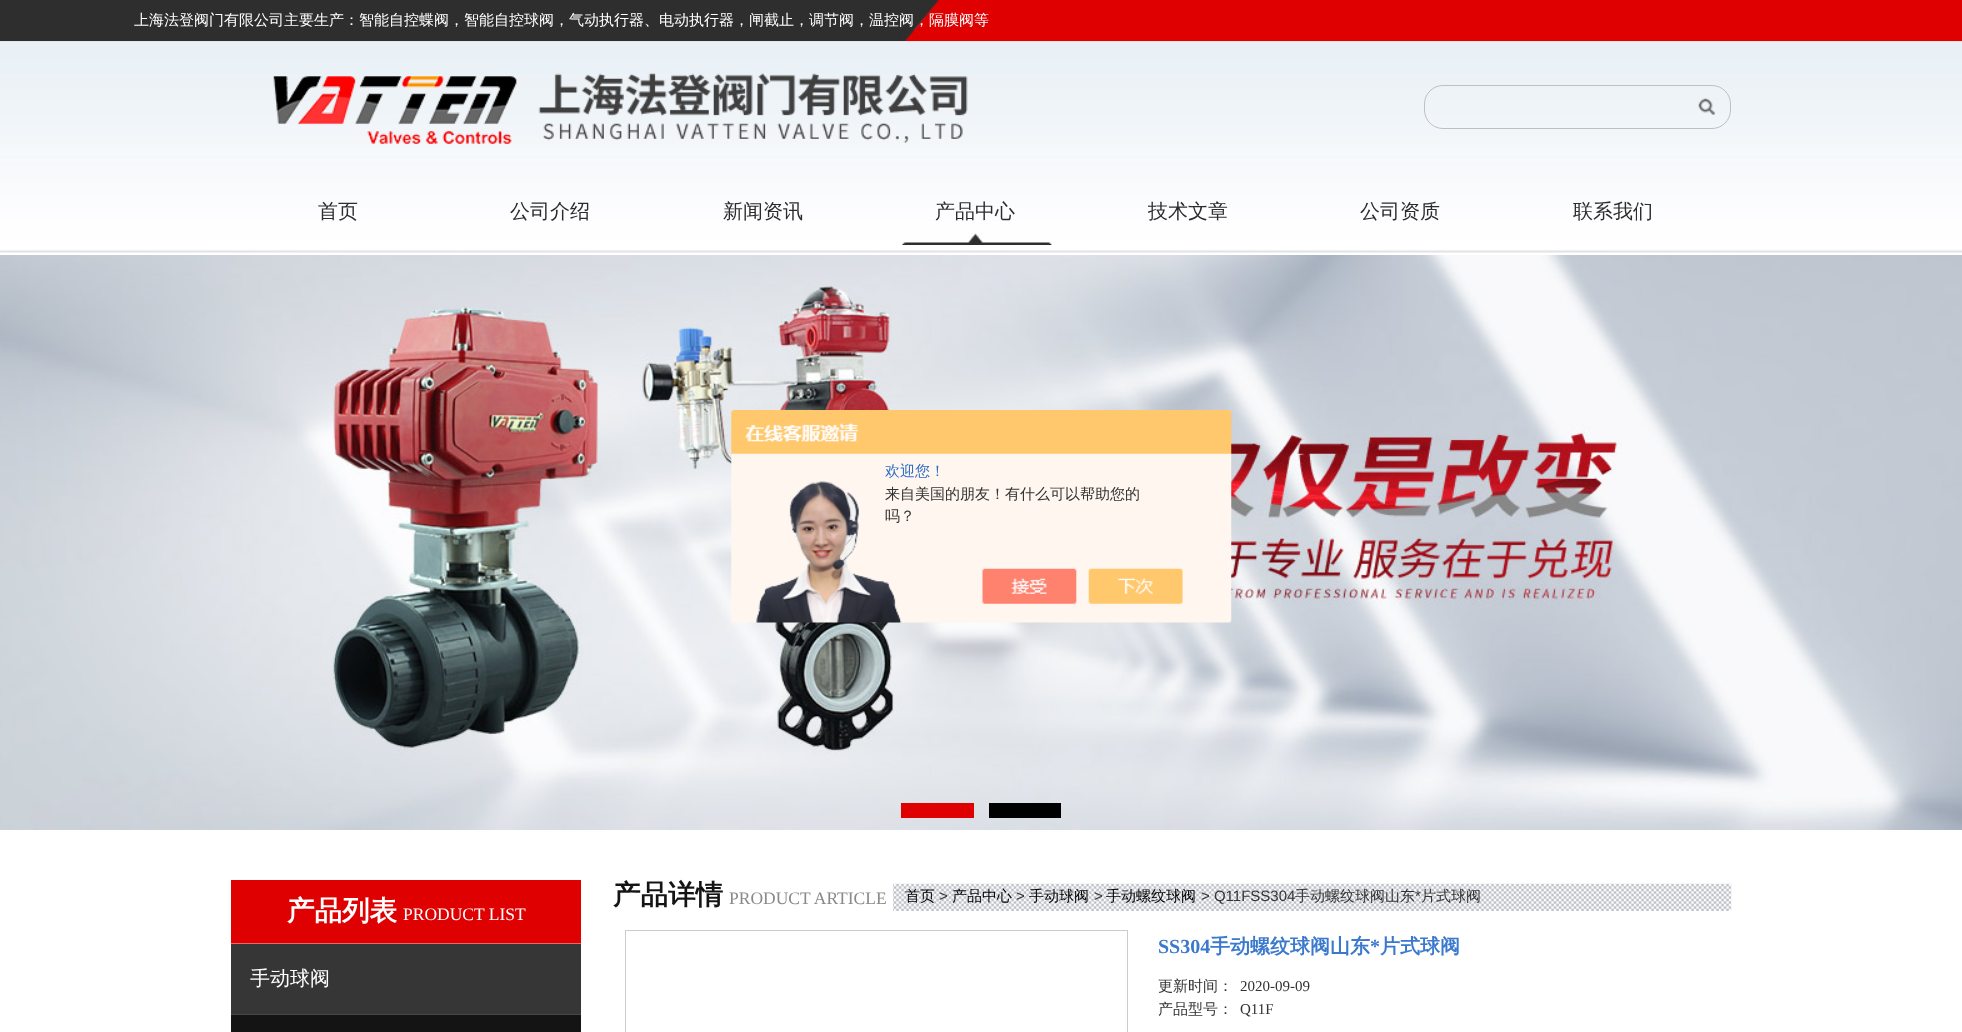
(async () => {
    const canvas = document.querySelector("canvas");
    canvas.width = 1962;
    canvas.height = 1032;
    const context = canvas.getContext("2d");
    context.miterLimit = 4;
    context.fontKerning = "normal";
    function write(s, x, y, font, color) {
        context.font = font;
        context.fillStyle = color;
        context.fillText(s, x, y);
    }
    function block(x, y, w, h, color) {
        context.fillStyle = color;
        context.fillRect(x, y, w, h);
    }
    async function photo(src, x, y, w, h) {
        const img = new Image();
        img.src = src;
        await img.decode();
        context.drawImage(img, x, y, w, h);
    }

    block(0, 0, 1962, 1032, "rgb(255, 255, 255)");
    await photo("media/1.png", 0, 0, 1962, 42);
    write("上海法登阀门有限公司主要生产：智能自控蝶阀，智能自控球阀，气动执行器、电动执行器，闸截止，调节阀，温控阀，隔膜阀等", 134, 25, "500 15px WenQuanYi Zen Hei", "rgb(255, 255, 255)");
    await photo("media/2.png", 0, 41, 1962, 212);
    await photo("media/3.png", 273, 73, 695, 71);
    context.beginPath();
    context.roundRect(1424.5, 85.5, 306, 43, 18.5);
    context.strokeStyle = "rgb(191, 191, 191)";
    context.stroke();
    await photo("media/4.png", 1698, 98, 17, 17);
    write("首页", 318, 218, "500 20px WenQuanYi Zen Hei", "rgb(44, 44, 44)");
    write("公司介绍", 510, 218, "500 20px WenQuanYi Zen Hei", "rgb(44, 44, 44)");
    write("新闻资讯", 723, 218, "500 20px WenQuanYi Zen Hei", "rgb(44, 44, 44)");
    write("产品中心", 935, 218, "500 20px WenQuanYi Zen Hei", "rgb(44, 44, 44)");
    await photo("media/5.png", 902, 233, 150, 12);
    write("技术文章", 1148, 218, "500 20px WenQuanYi Zen Hei", "rgb(44, 44, 44)");
    write("公司资质", 1360, 218, "500 20px WenQuanYi Zen Hei", "rgb(44, 44, 44)");
    write("联系我们", 1573, 218, "500 20px WenQuanYi Zen Hei", "rgb(44, 44, 44)");
    await photo("media/6.png", 0, 255, 1962, 575);
    block(901, 803, 73, 15, "rgb(223, 0, 1)");
    block(989, 803, 72, 15, "rgb(0, 0, 0)");
    await photo("media/7.png", 731, 410, 501, 213);
    write("欢迎您！", 885, 476, "500 15px WenQuanYi Zen Hei", "rgb(46, 110, 198)");
    write("来自美国的朋友！有什么可以帮助您的", 885, 499, "500 15px WenQuanYi Zen Hei", "rgb(51, 51, 51)");
    write("吗？", 885, 521, "500 15px WenQuanYi Zen Hei", "rgb(51, 51, 51)");
    block(231, 880, 350, 63, "rgb(223, 0, 1)");
    block(231, 943, 350, 1, "rgb(236, 102, 103)");
    write("产品列表", 287, 920, "bold 27.5px WenQuanYi Zen Hei", "rgb(255, 255, 255)");
    write("PRODUCT LIST", 403, 920, "17.5px Liberation Serif", "rgb(255, 255, 255)");
    block(231, 944, 350, 70, "rgb(54, 54, 54)");
    write("手动球阀", 250, 985, "500 20px WenQuanYi Zen Hei", "rgb(255, 255, 255)");
    block(231, 1015, 350, 17, "rgb(20, 20, 20)");
    block(231, 1014, 350, 1, "rgb(71, 71, 71)");
    await photo("media/8.png", 893, 883, 839, 29);
    write("产品详情", 613, 904, "bold 27.5px WenQuanYi Zen Hei", "rgb(20, 20, 20)");
    write("PRODUCT ARTICLE", 729, 904, "17.5px Liberation Serif", "rgb(137, 137, 137)");
    write("首页", 905, 901, "500 15px WenQuanYi Zen Hei", "rgb(0, 0, 0)");
    write(">", 939, 901, "15px Liberation Sans", "rgb(51, 51, 51)");
    write("产品中心", 952, 901, "500 15px WenQuanYi Zen Hei", "rgb(0, 0, 0)");
    write(">", 1016, 901, "15px Liberation Sans", "rgb(51, 51, 51)");
    write("手动球阀", 1029, 901, "500 15px WenQuanYi Zen Hei", "rgb(0, 0, 0)");
    write(">", 1094, 901, "15px Liberation Sans", "rgb(51, 51, 51)");
    write("手动螺纹球阀", 1106, 901, "500 15px WenQuanYi Zen Hei", "rgb(0, 0, 0)");
    write("> Q11FSS304", 1201, 901, "15px Liberation Sans", "rgb(51, 51, 51)");
    write("手动螺纹球阀山东", 1295, 901, "500 15px WenQuanYi Zen Hei", "rgb(51, 51, 51)");
    write("*", 1415, 901, "15px Liberation Sans", "rgb(51, 51, 51)");
    write("片式球阀", 1421, 901, "500 15px WenQuanYi Zen Hei", "rgb(51, 51, 51)");
    block(893, 911, 838, 1, "rgb(255, 255, 255)");
    context.strokeStyle = "rgb(204, 204, 204)";
    context.strokeRect(625.5, 930.5, 502, 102);
    write("SS304", 1158, 953, "bold 20px Liberation Serif", "rgb(59, 121, 205)");
    write("手动螺纹球阀山东", 1210, 953, "bold 20px WenQuanYi Zen Hei", "rgb(59, 121, 205)");
    write("*", 1370, 953, "bold 20px Liberation Serif", "rgb(59, 121, 205)");
    write("片式球阀", 1380, 953, "bold 20px WenQuanYi Zen Hei", "rgb(59, 121, 205)");
    write("更新时间：", 1158, 991, "500 15px WenQuanYi Zen Hei", "rgb(51, 51, 51)");
    write("2020-09-09", 1240, 991, "15px Liberation Serif", "rgb(51, 51, 51)");
    write("产品型号：", 1158, 1014, "500 15px WenQuanYi Zen Hei", "rgb(51, 51, 51)");
    write("Q11F", 1240, 1014, "15px Liberation Serif", "rgb(51, 51, 51)");
})();
